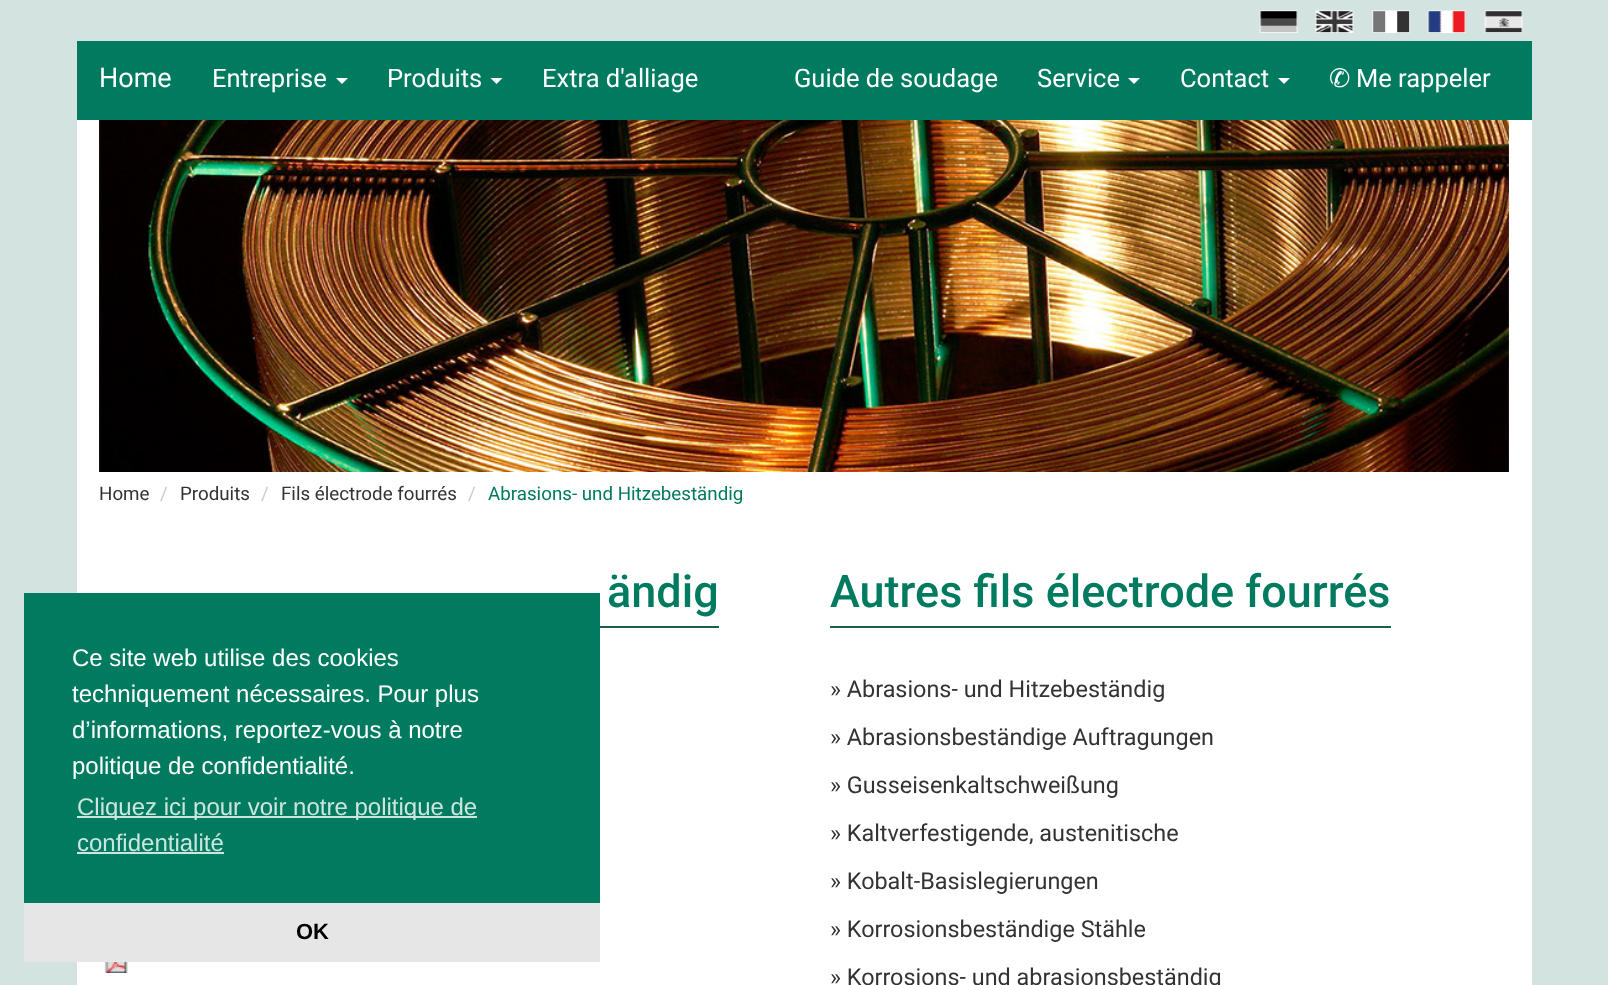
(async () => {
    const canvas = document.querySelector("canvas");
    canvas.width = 1608;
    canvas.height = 985;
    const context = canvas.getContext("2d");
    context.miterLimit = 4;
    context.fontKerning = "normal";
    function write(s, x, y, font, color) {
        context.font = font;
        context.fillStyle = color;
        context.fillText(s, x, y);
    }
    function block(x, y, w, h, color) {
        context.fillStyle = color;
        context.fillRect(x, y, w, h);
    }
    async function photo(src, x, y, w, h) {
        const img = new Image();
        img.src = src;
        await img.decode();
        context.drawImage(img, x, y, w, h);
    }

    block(0, 0, 1608, 985, "rgb(211, 228, 224)");
    await photo("media/1.png", 1259, 10, 39, 23);
    await photo("media/2.png", 1315, 10, 39, 23);
    await photo("media/3.png", 1372, 10, 38, 23);
    await photo("media/4.png", 1427, 10, 39, 23);
    await photo("media/5.png", 1484, 10, 39, 23);
    block(77, 41, 1455, 79, "rgb(0, 123, 95)");
    write("Home", 99, 87, "27px Roboto", "rgb(255, 255, 255)");
    write("Entreprise", 212, 87, "25.5px Roboto", "rgb(255, 255, 255)");
    context.beginPath();
    context.moveTo(336, 78);
    context.lineTo(348, 78);
    context.lineTo(342, 84);
    context.closePath();
    context.fill();
    write("Produits", 387, 87, "25.5px Roboto", "rgb(255, 255, 255)");
    context.beginPath();
    context.moveTo(490.5, 78);
    context.lineTo(502.5, 78);
    context.lineTo(496.5, 84);
    context.closePath();
    context.fill();
    write("Extra d'alliage", 542, 87, "25.5px Roboto", "rgb(255, 255, 255)");
    write("Guide de soudage", 794, 87, "25.5px Roboto", "rgb(255, 255, 255)");
    write("Service", 1037, 87, "25.5px Roboto", "rgb(255, 255, 255)");
    context.beginPath();
    context.moveTo(1128, 78);
    context.lineTo(1140, 78);
    context.lineTo(1134, 84);
    context.closePath();
    context.fill();
    write("Contact", 1180, 87, "25.5px Roboto", "rgb(255, 255, 255)");
    context.beginPath();
    context.moveTo(1278, 78);
    context.lineTo(1290, 78);
    context.lineTo(1284, 84);
    context.closePath();
    context.fill();
    write("✆", 1329, 87, "25.5px DejaVu Sans", "rgb(255, 255, 255)");
    write("Me rappeler", 1356, 87, "25.5px Roboto", "rgb(255, 255, 255)");
    block(77, 120, 1455, 865, "rgb(255, 255, 255)");
    await photo("media/6.png", 99, 120, 1410, 352);
    write("Home", 99, 500, "18.75px Roboto", "rgb(51, 51, 51)");
    write("/", 160, 500, "18.75px Roboto", "rgb(204, 204, 204)");
    write("Produits", 180, 500, "18.75px Roboto", "rgb(51, 51, 51)");
    write("/", 261, 500, "18.75px Roboto", "rgb(204, 204, 204)");
    write("Fils électrode fourrés", 281, 500, "18.75px Roboto", "rgb(51, 51, 51)");
    write("/", 468, 500, "18.75px Roboto", "rgb(204, 204, 204)");
    write("Abrasions- und Hitzebeständig", 488, 500, "18.75px Roboto", "rgb(0, 123, 95)");
    write("ändig", 607, 607, "500 45px Roboto", "rgb(0, 123, 95)");
    block(600, 626, 119, 2, "rgb(30, 96, 75)");
    await photo("media/7.png", 104, 962, 24, 11);
    write("Autres fils électrode fourrés", 830, 607, "500 45px Roboto", "rgb(0, 123, 95)");
    block(830, 626, 561, 2, "rgb(30, 96, 75)");
    write("» Abrasions- und Hitzebeständig", 830, 697, "23.4px Roboto", "rgb(51, 51, 51)");
    write("» Abrasionsbeständige Auftragungen", 830, 745, "23.4px Roboto", "rgb(51, 51, 51)");
    write("» Gusseisenkaltschweißung", 830, 793, "23.4px Roboto", "rgb(51, 51, 51)");
    write("» Kaltverfestigende, austenitische", 830, 841, "23.4px Roboto", "rgb(51, 51, 51)");
    write("» Kobalt-Basislegierungen", 830, 889, "23.4px Roboto", "rgb(51, 51, 51)");
    write("» Korrosionsbeständige Stähle", 830, 937, "23.4px Roboto", "rgb(51, 51, 51)");
    write("» Korrosions- und abrasionsbeständig", 830, 985, "23.4px Roboto", "rgb(51, 51, 51)");
    block(24, 593, 576, 310, "rgb(0, 123, 95)");
    write("Ce site web utilise des cookies", 72, 666, "24px Liberation Sans", "rgb(255, 255, 255)");
    write("techniquement nécessaires. Pour plus", 72, 702, "24px Liberation Sans", "rgb(255, 255, 255)");
    write("d’informations, reportez-vous à notre", 72, 738, "24px Liberation Sans", "rgb(255, 255, 255)");
    write("politique de confidentialité.", 72, 774, "24px Liberation Sans", "rgb(255, 255, 255)");
    block(77, 816, 400, 2, "rgb(204, 229, 223)");
    write("Cliquez ici pour voir notre politique de", 77, 815, "24px Liberation Sans", "rgb(204, 229, 223)");
    write("confidentialité", 77, 851, "24px Liberation Sans", "rgb(204, 229, 223)");
    block(77, 852, 147, 2, "rgb(204, 229, 223)");
    block(24, 903, 576, 59, "rgb(230, 230, 230)");
    write("OK", 296, 939, "bold 22px Liberation Sans", "rgb(0, 0, 0)");
})();
